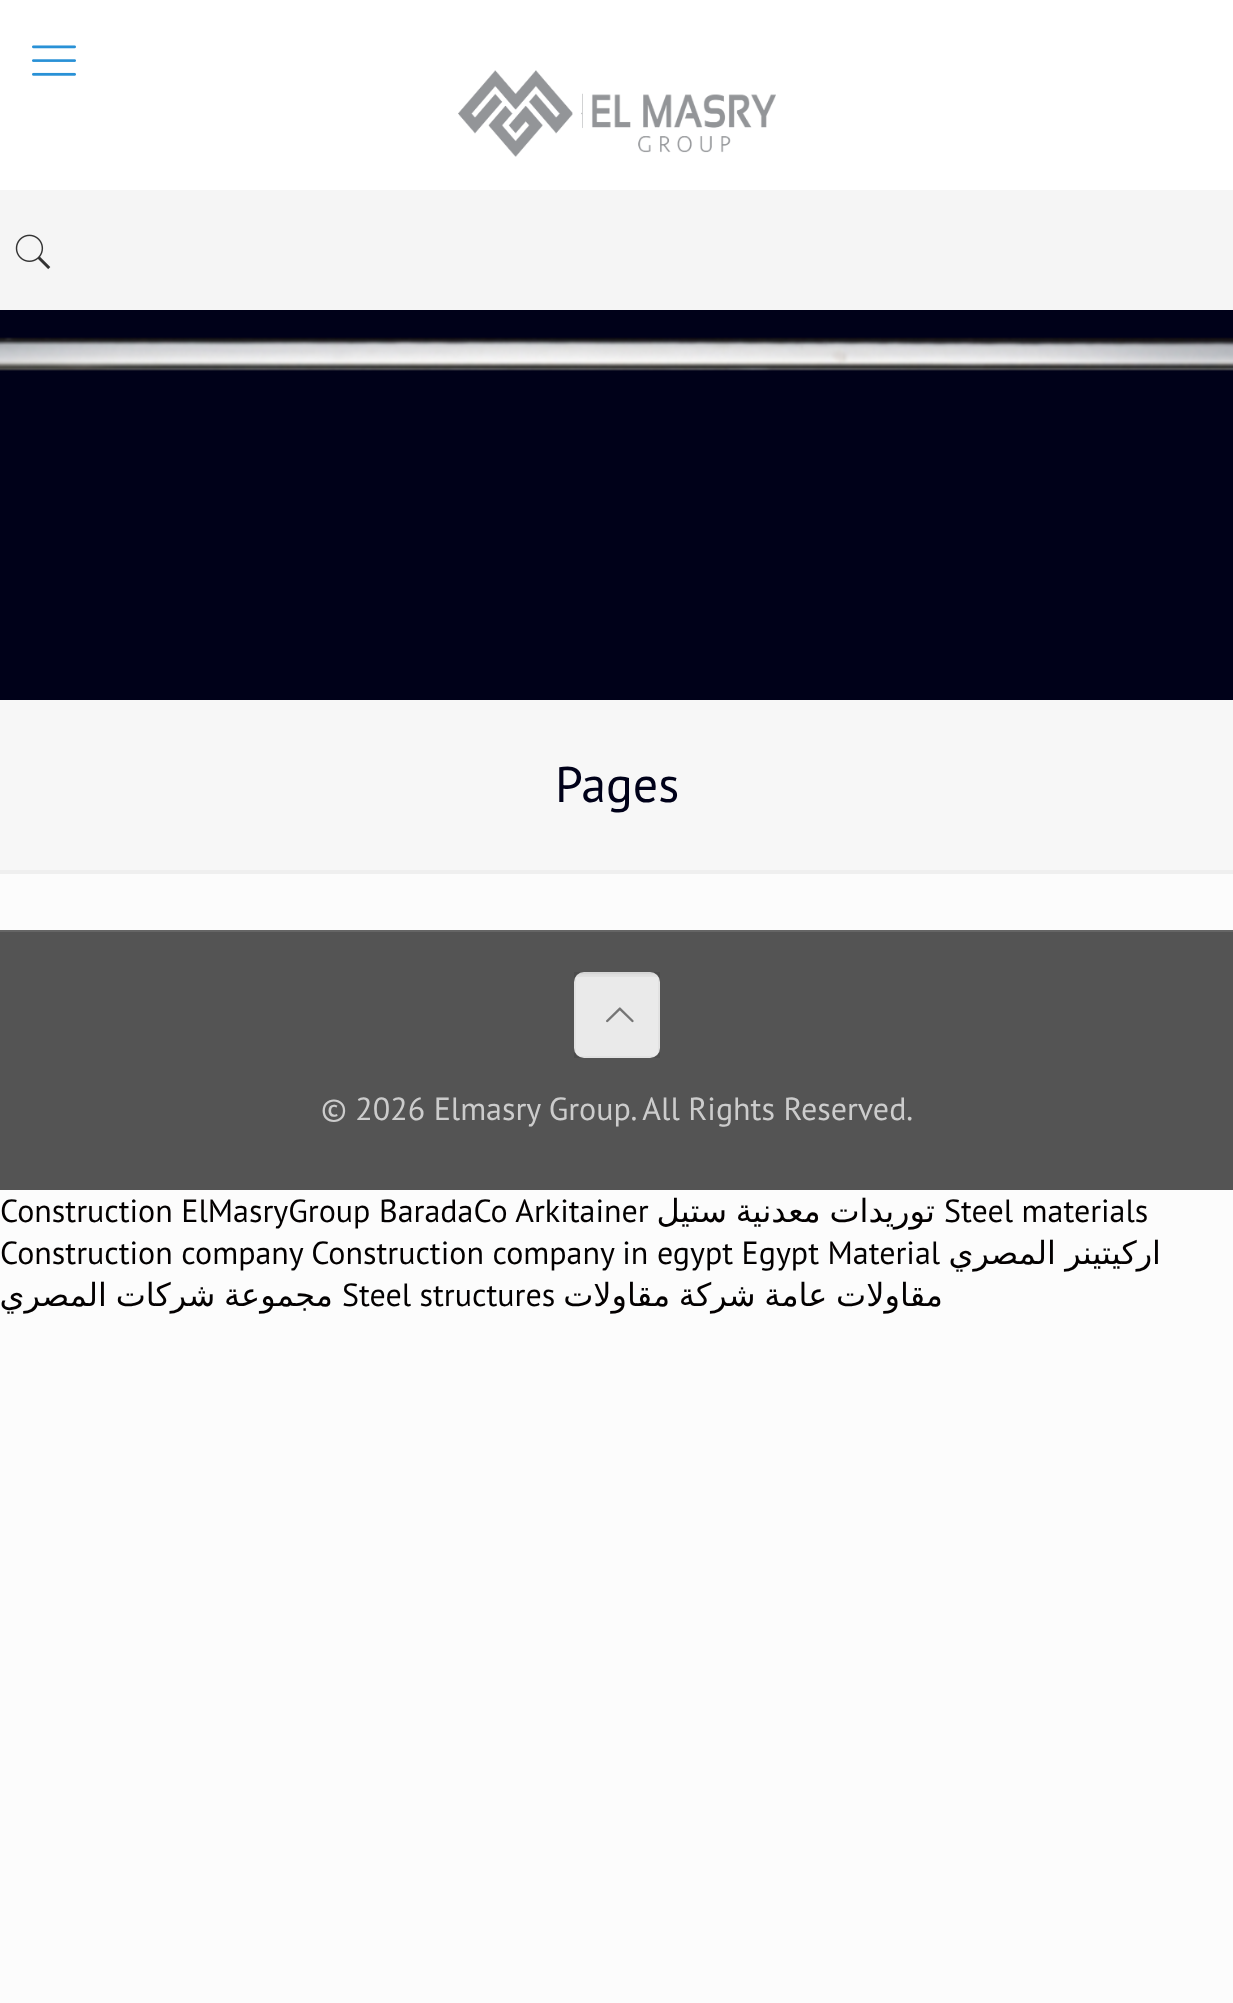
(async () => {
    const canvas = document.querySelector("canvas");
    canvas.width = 1233;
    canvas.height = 2003;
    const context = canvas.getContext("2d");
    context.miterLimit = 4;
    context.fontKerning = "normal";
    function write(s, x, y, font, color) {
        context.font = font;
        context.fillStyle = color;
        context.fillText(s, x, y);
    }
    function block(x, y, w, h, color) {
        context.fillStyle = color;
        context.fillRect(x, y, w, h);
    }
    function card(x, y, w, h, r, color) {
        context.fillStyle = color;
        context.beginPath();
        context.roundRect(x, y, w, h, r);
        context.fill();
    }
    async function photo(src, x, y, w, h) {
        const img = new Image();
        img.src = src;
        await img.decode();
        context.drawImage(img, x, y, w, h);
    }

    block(0, 0, 1233, 2003, "rgb(252, 252, 252)");
    block(0, 310, 1233, 390, "rgb(0, 1, 25)");
    await photo("media/1.png", 0, 337, 1233, 34);
    block(0, 0, 1233, 190, "rgb(255, 255, 255)");
    await photo("media/2.png", 32, 45, 44, 31);
    await photo("media/3.png", 458, 70, 318, 87);
    block(0, 190, 1233, 120, "rgb(245, 245, 245)");
    await photo("media/4.png", 15, 234, 36, 36);
    block(0, 700, 1233, 170, "rgb(247, 247, 247)");
    write("Pages", 555, 802, "50px PT Sans", "rgb(0, 1, 25)");
    block(0, 870, 1233, 4, "rgb(239, 239, 239)");
    block(0, 932, 1233, 258, "rgb(84, 84, 84)");
    block(0, 930, 1233, 2, "rgb(101, 101, 101)");
    card(574, 972, 86, 86, 10, "rgb(247, 247, 247)");
    await photo("media/5.png", 576, 972, 82, 5);
    context.strokeStyle = "rgba(0, 0, 0, 0.03)";
    context.lineWidth = 2;
    context.strokeRect(575, 973, 84, 84);
    block(574, 972, 86, 86, "rgba(0, 0, 0, 0.05)");
    await photo("media/6.png", 606, 1007, 28, 16);
    write("© 2026 Elmasry Group. All Rights Reserved.", 321, 1120, "32px PT Sans", "rgb(204, 204, 204)");
    write("Construction ElMasryGroup BaradaCo Arkitainer", 0, 1222, "32px PT Sans", "rgb(3, 0, 0)");
    context.wordSpacing = "-1.5px";
    context.direction = "rtl";
    write("توريدات معدنية ستيل", 935, 1222, "32px DejaVu Sans", "rgb(3, 0, 0)");
    context.wordSpacing = "0px";
    context.direction = "ltr";
    write("Steel materials", 944, 1222, "32px PT Sans", "rgb(3, 0, 0)");
    write("Construction company Construction company in egypt Egypt Material", 0, 1264, "32px PT Sans", "rgb(3, 0, 0)");
    context.direction = "rtl";
    write("المصري", 1056, 1264, "32px DejaVu Sans", "rgb(3, 0, 0)");
    write("اركيتينر", 1161, 1264, "32px DejaVu Sans", "rgb(3, 0, 0)");
    context.wordSpacing = "-1.5px";
    write("مجموعة شركات المصري", 333, 1306, "32px DejaVu Sans", "rgb(3, 0, 0)");
    context.wordSpacing = "0px";
    context.direction = "ltr";
    write("Steel structures", 342, 1306, "32px PT Sans", "rgb(3, 0, 0)");
    context.wordSpacing = "-1.5px";
    context.direction = "rtl";
    write("مقاولات عامة شركة مقاولات", 943, 1306, "32px DejaVu Sans", "rgb(3, 0, 0)");
})();
